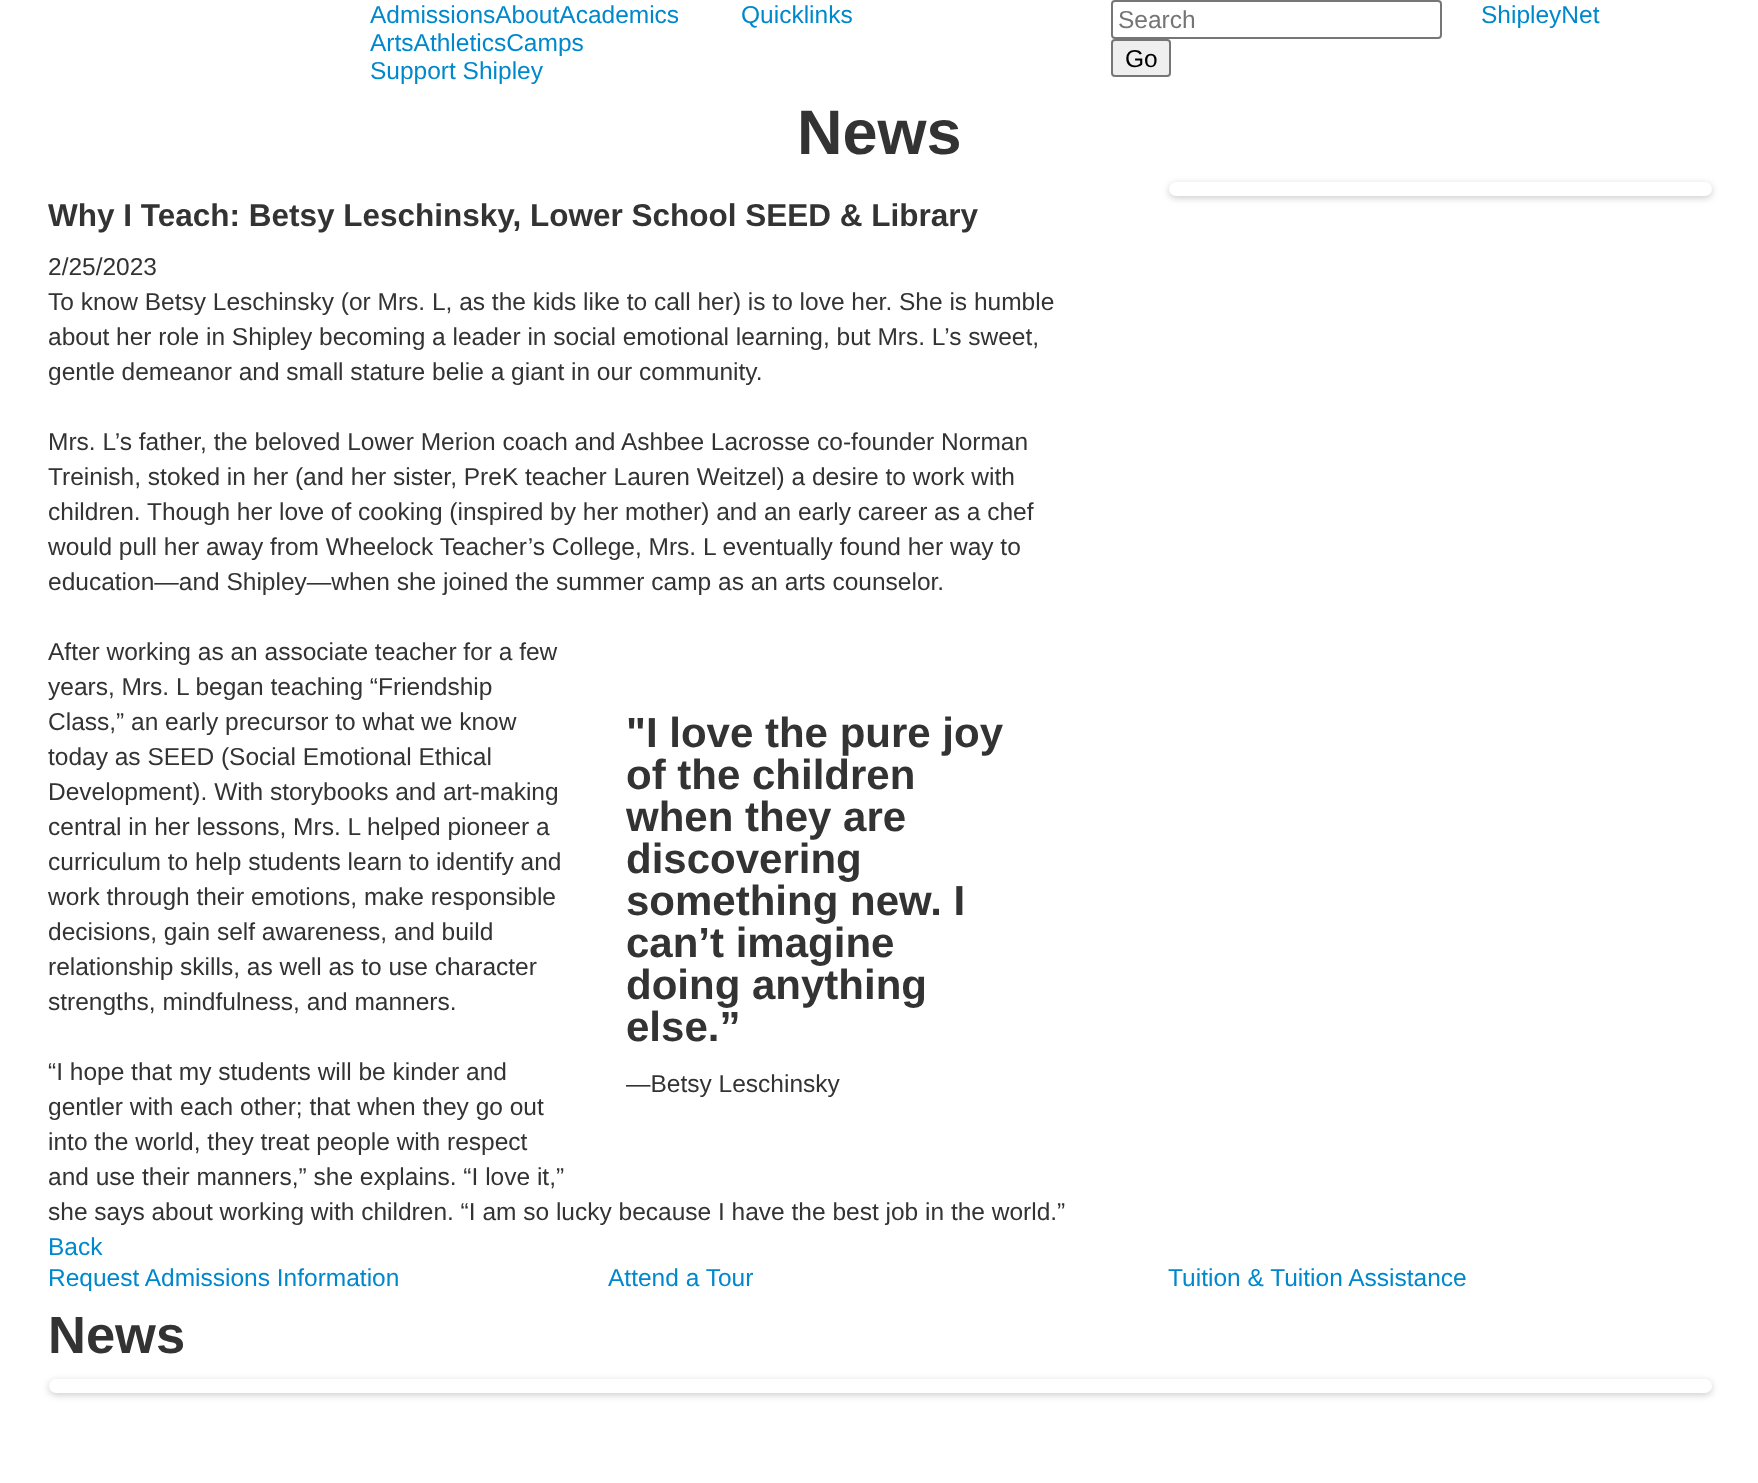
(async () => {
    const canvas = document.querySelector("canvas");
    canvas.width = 1758;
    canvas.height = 1483;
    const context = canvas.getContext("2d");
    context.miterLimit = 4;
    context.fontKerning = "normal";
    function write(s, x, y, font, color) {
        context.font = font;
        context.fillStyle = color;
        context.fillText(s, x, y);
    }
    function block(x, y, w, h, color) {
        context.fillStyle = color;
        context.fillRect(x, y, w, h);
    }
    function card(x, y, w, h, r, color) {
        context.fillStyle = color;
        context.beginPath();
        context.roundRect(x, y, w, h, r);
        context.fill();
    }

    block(0, 0, 1758, 1483, "rgb(255, 255, 255)");
    write("AdmissionsAboutAcademics", 370, 23, "24.5px Liberation Sans", "rgb(0, 136, 204)");
    write("ArtsAthleticsCamps", 370, 51, "24.5px Liberation Sans", "rgb(0, 136, 204)");
    write("Support Shipley", 370, 79, "24.5px Liberation Sans", "rgb(0, 136, 204)");
    write("Quicklinks", 741, 23, "24.5px Liberation Sans", "rgb(0, 136, 204)");
    context.beginPath();
    context.roundRect(1112, 1, 329, 37, 3);
    context.strokeStyle = "rgb(118, 118, 118)";
    context.lineWidth = 2;
    context.stroke();
    write("Search", 1118, 28, "24.5px Liberation Sans", "rgb(117, 117, 117)");
    context.fillStyle = "rgb(239, 239, 239)";
    context.beginPath();
    context.roundRect(1112, 40, 58, 36, 3);
    context.fill();
    context.stroke();
    write("Go", 1125, 67, "24.5px Liberation Sans", "rgb(0, 0, 0)");
    write("ShipleyNet", 1481, 23, "24.5px Liberation Sans", "rgb(0, 136, 204)");
    write("News", 797, 154, "bold 63px Liberation Sans", "rgb(51, 51, 51)");
    context.fillStyle = "rgba(0, 0, 0, 0.2)";
    context.filter = "blur(3.5px)";
    context.beginPath();
    context.roundRect(1169, 184, 543, 14, 7);
    context.fill();
    context.filter = "none";
    card(1169, 182, 543, 14, 7, "rgb(255, 255, 255)");
    write("Why I Teach: Betsy Leschinsky, Lower School SEED & Library", 48, 226, "bold 31.5px Liberation Sans", "rgb(51, 51, 51)");
    write("2/25/2023", 48, 275, "24.5px Liberation Sans", "rgb(51, 51, 51)");
    write("To know Betsy Leschinsky (or Mrs. L, as the kids like to call her) is to love her. She is humble", 48, 310, "24.5px Liberation Sans", "rgb(51, 51, 51)");
    write("about her role in Shipley becoming a leader in social emotional learning, but Mrs. L’s sweet,", 48, 345, "24.5px Liberation Sans", "rgb(51, 51, 51)");
    write("gentle demeanor and small stature belie a giant in our community.", 48, 380, "24.5px Liberation Sans", "rgb(51, 51, 51)");
    write("Mrs. L’s father, the beloved Lower Merion coach and Ashbee Lacrosse co-founder Norman", 48, 450, "24.5px Liberation Sans", "rgb(51, 51, 51)");
    write("Treinish, stoked in her (and her sister, PreK teacher Lauren Weitzel) a desire to work with", 48, 485, "24.5px Liberation Sans", "rgb(51, 51, 51)");
    write("children. Though her love of cooking (inspired by her mother) and an early career as a chef", 48, 520, "24.5px Liberation Sans", "rgb(51, 51, 51)");
    write("would pull her away from Wheelock Teacher’s College, Mrs. L eventually found her way to", 48, 555, "24.5px Liberation Sans", "rgb(51, 51, 51)");
    write("education—and Shipley—when she joined the summer camp as an arts counselor.", 48, 590, "24.5px Liberation Sans", "rgb(51, 51, 51)");
    write("After working as an associate teacher for a few", 48, 660, "24.5px Liberation Sans", "rgb(51, 51, 51)");
    write("years, Mrs. L began teaching “Friendship", 48, 695, "24.5px Liberation Sans", "rgb(51, 51, 51)");
    write("Class,” an early precursor to what we know", 48, 730, "24.5px Liberation Sans", "rgb(51, 51, 51)");
    write("today as SEED (Social Emotional Ethical", 48, 765, "24.5px Liberation Sans", "rgb(51, 51, 51)");
    write("Development). With storybooks and art-making", 48, 800, "24.5px Liberation Sans", "rgb(51, 51, 51)");
    write("central in her lessons, Mrs. L helped pioneer a", 48, 835, "24.5px Liberation Sans", "rgb(51, 51, 51)");
    write("curriculum to help students learn to identify and", 48, 870, "24.5px Liberation Sans", "rgb(51, 51, 51)");
    write("work through their emotions, make responsible", 48, 905, "24.5px Liberation Sans", "rgb(51, 51, 51)");
    write("decisions, gain self awareness, and build", 48, 940, "24.5px Liberation Sans", "rgb(51, 51, 51)");
    write("relationship skills, as well as to use character", 48, 975, "24.5px Liberation Sans", "rgb(51, 51, 51)");
    write("strengths, mindfulness, and manners.", 48, 1010, "24.5px Liberation Sans", "rgb(51, 51, 51)");
    write("\"I love the pure joy", 626, 747, "bold 42px Liberation Sans", "rgb(51, 51, 51)");
    write("of the children", 626, 789, "bold 42px Liberation Sans", "rgb(51, 51, 51)");
    write("when they are", 626, 831, "bold 42px Liberation Sans", "rgb(51, 51, 51)");
    write("discovering", 626, 873, "bold 42px Liberation Sans", "rgb(51, 51, 51)");
    write("something new. I", 626, 915, "bold 42px Liberation Sans", "rgb(51, 51, 51)");
    write("can’t imagine", 626, 957, "bold 42px Liberation Sans", "rgb(51, 51, 51)");
    write("doing anything", 626, 999, "bold 42px Liberation Sans", "rgb(51, 51, 51)");
    write("else.”", 626, 1041, "bold 42px Liberation Sans", "rgb(51, 51, 51)");
    write("—Betsy Leschinsky", 626, 1092, "24.5px Liberation Sans", "rgb(51, 51, 51)");
    write("“I hope that my students will be kinder and", 48, 1080, "24.5px Liberation Sans", "rgb(51, 51, 51)");
    write("gentler with each other; that when they go out", 48, 1115, "24.5px Liberation Sans", "rgb(51, 51, 51)");
    write("into the world, they treat people with respect", 48, 1150, "24.5px Liberation Sans", "rgb(51, 51, 51)");
    write("and use their manners,” she explains. “I love it,”", 48, 1185, "24.5px Liberation Sans", "rgb(51, 51, 51)");
    write("she says about working with children. “I am so lucky because I have the best job in the world.”", 48, 1220, "24.5px Liberation Sans", "rgb(51, 51, 51)");
    write("Back", 48, 1255, "24.5px Liberation Sans", "rgb(0, 136, 204)");
    write("Request Admissions Information", 48, 1286, "24.5px Liberation Sans", "rgb(0, 136, 204)");
    write("Attend a Tour", 608, 1286, "24.5px Liberation Sans", "rgb(0, 136, 204)");
    write("Tuition & Tuition Assistance", 1168, 1286, "24.5px Liberation Sans", "rgb(0, 136, 204)");
    write("News", 48, 1353, "bold 52.5px Liberation Sans", "rgb(51, 51, 51)");
    context.fillStyle = "rgba(0, 0, 0, 0.2)";
    context.filter = "blur(3.5px)";
    context.beginPath();
    context.roundRect(49, 1381, 1663, 14, 7);
    context.fill();
    context.filter = "none";
    card(49, 1379, 1663, 14, 7, "rgb(255, 255, 255)");
})();
